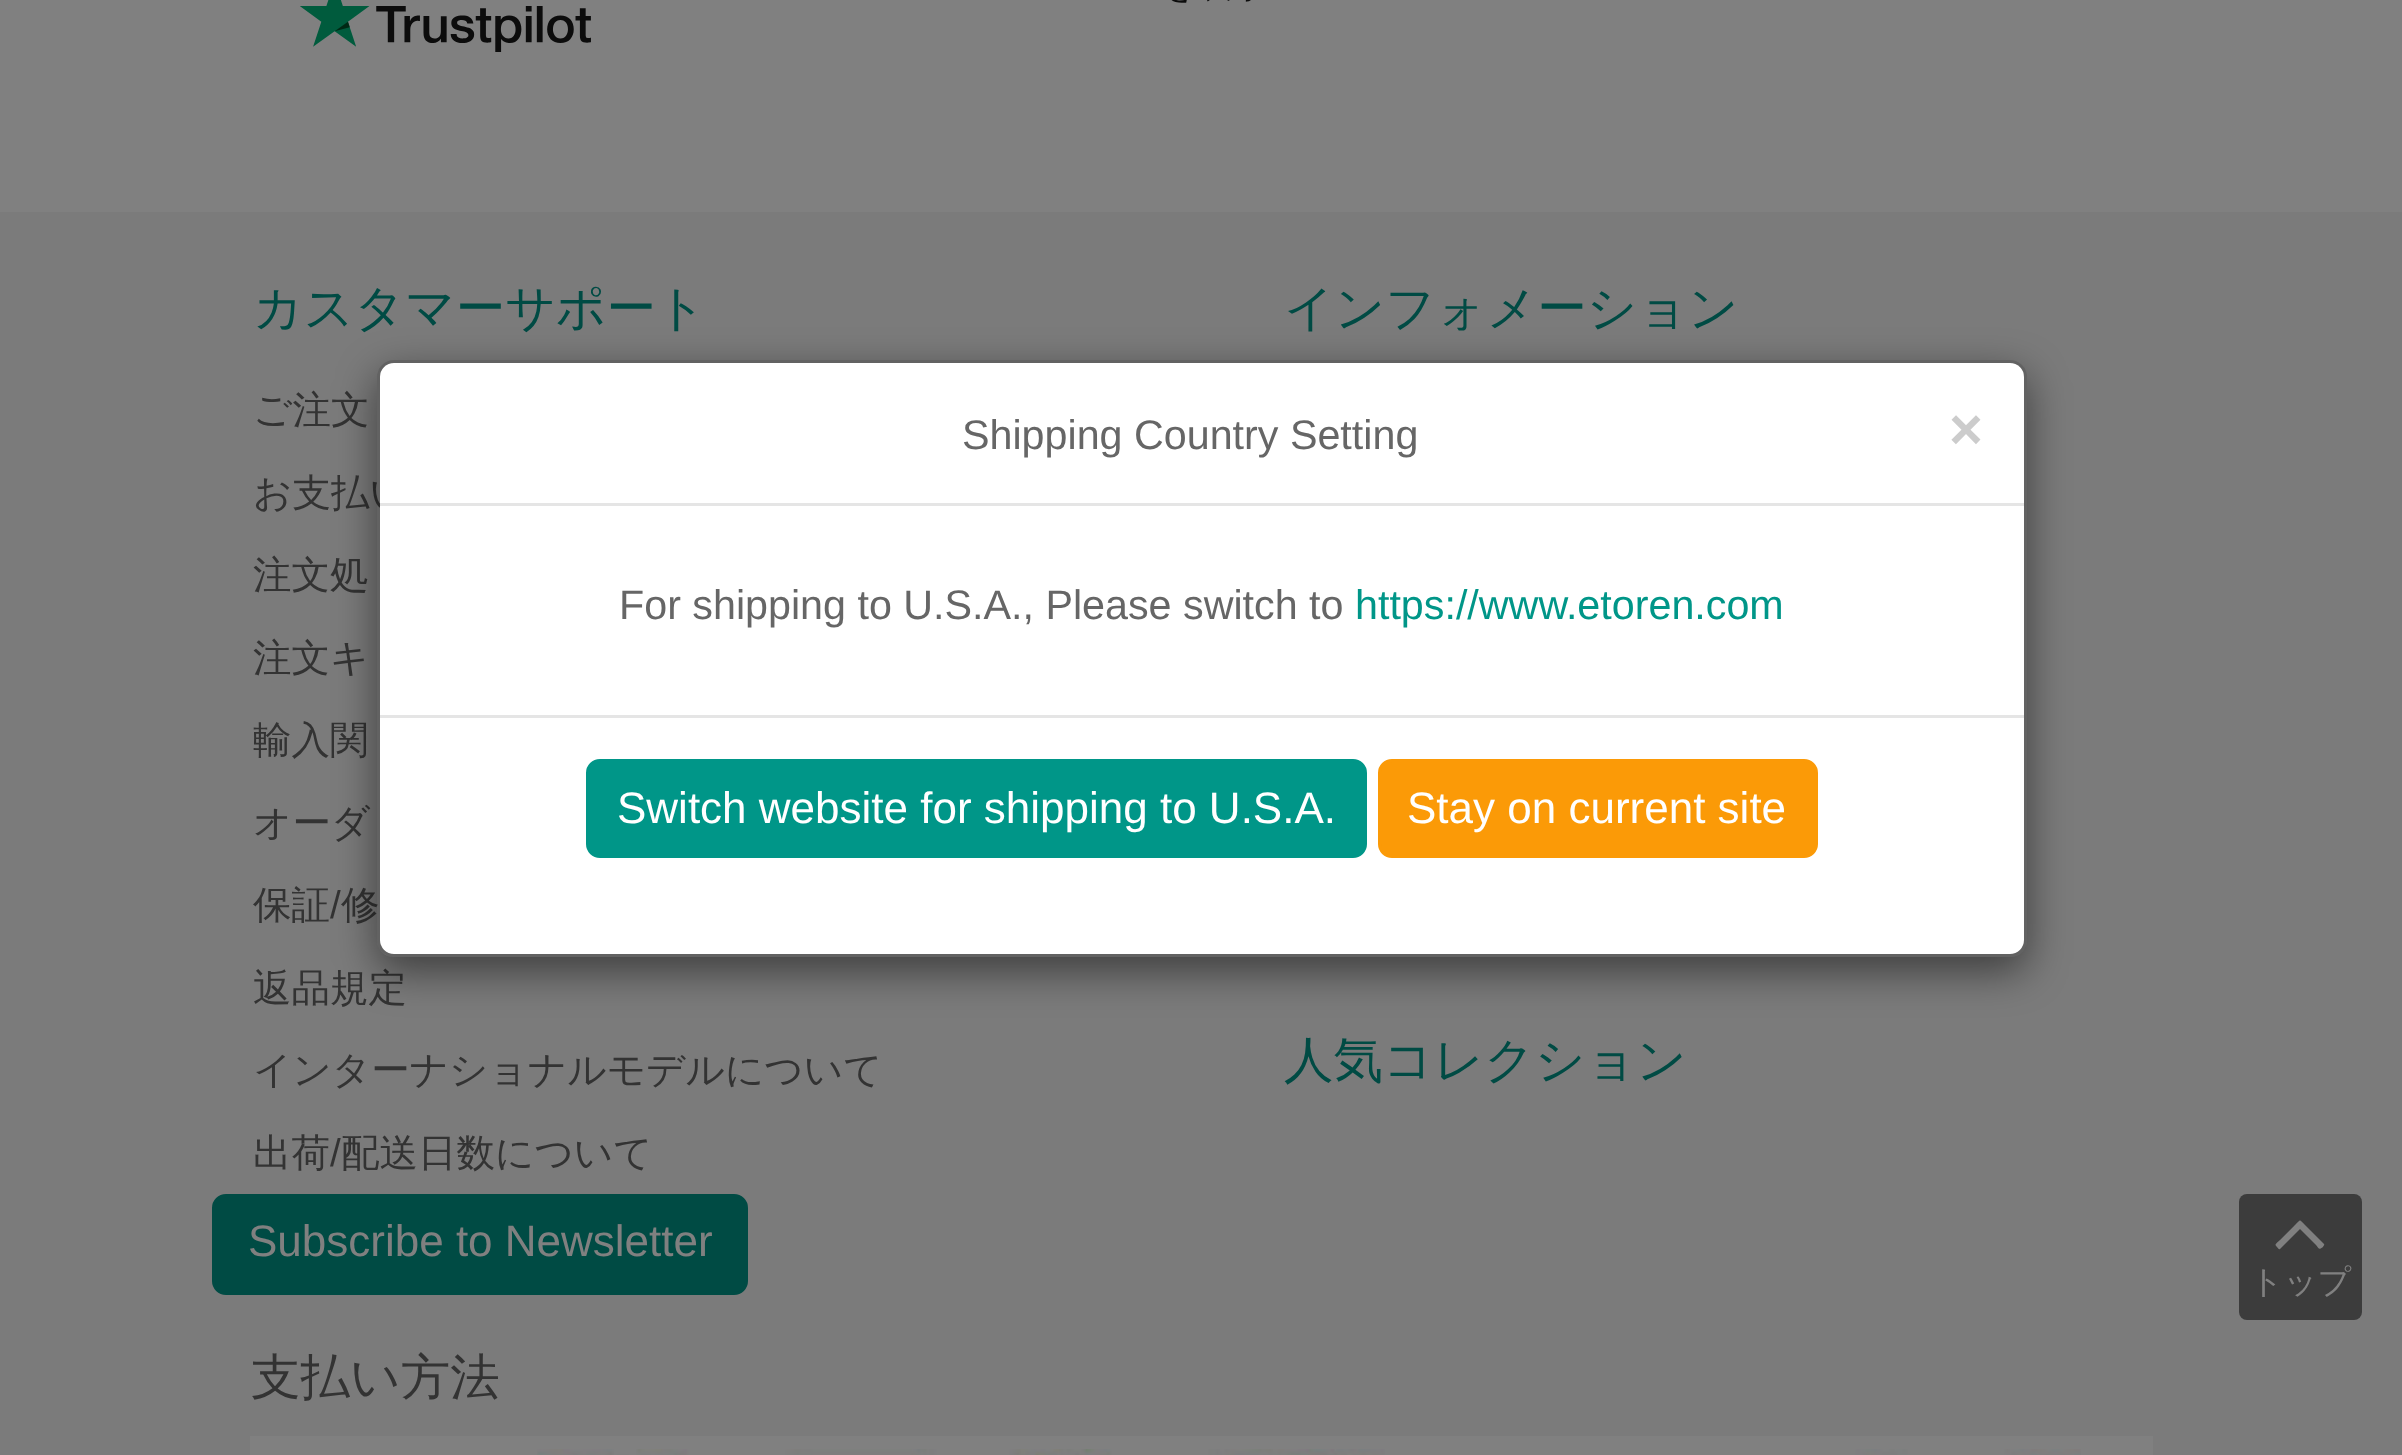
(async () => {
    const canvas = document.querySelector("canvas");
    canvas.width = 2402;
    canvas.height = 1455;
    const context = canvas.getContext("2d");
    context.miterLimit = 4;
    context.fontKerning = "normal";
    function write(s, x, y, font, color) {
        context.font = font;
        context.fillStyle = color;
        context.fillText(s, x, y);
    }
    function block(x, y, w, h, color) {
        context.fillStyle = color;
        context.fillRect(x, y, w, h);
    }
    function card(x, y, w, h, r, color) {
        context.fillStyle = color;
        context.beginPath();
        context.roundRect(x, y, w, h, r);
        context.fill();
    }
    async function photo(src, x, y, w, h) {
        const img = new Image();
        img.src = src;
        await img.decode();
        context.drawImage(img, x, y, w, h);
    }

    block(0, 0, 2402, 1455, "rgb(128, 128, 128)");
    await photo("media/1.png", 300, 0, 951, 52);
    block(0, 212, 2402, 1243, "rgb(123, 123, 123)");
    write("カスタマーサポート", 253, 325, "500 49.5px WenQuanYi Zen Hei", "rgb(0, 75, 68)");
    write("ご注文", 253, 423, "500 38.5px WenQuanYi Zen Hei", "rgb(51, 51, 51)");
    write("お支払い", 253, 506, "500 38.5px WenQuanYi Zen Hei", "rgb(51, 51, 51)");
    write("注文処", 253, 588, "500 38.5px WenQuanYi Zen Hei", "rgb(51, 51, 51)");
    write("注文キ", 253, 671, "500 38.5px WenQuanYi Zen Hei", "rgb(51, 51, 51)");
    write("輸入関", 253, 753, "500 38.5px WenQuanYi Zen Hei", "rgb(51, 51, 51)");
    write("オーダ", 253, 836, "500 38.5px WenQuanYi Zen Hei", "rgb(51, 51, 51)");
    write("保証", 253, 918, "500 38.5px WenQuanYi Zen Hei", "rgb(51, 51, 51)");
    write("/", 330, 918, "38.5px Liberation Sans", "rgb(51, 51, 51)");
    write("修", 341, 918, "500 38.5px WenQuanYi Zen Hei", "rgb(51, 51, 51)");
    write("返品規定", 253, 1001, "500 38.5px WenQuanYi Zen Hei", "rgb(51, 51, 51)");
    write("インターナショナルモデルについて", 253, 1083, "500 38.5px WenQuanYi Zen Hei", "rgb(51, 51, 51)");
    write("出荷", 253, 1166, "500 38.5px WenQuanYi Zen Hei", "rgb(51, 51, 51)");
    write("/", 330, 1166, "38.5px Liberation Sans", "rgb(51, 51, 51)");
    write("配送日数について", 341, 1166, "500 38.5px WenQuanYi Zen Hei", "rgb(51, 51, 51)");
    write("インフォメーション", 1284, 325, "500 49.5px WenQuanYi Zen Hei", "rgb(0, 75, 68)");
    write("人気コレクション", 1284, 1077, "500 49.5px WenQuanYi Zen Hei", "rgb(0, 75, 68)");
    context.beginPath();
    context.roundRect(213.5, 1195.5, 533, 98, 12.5);
    context.fill();
    context.strokeStyle = "rgb(0, 75, 68)";
    context.lineWidth = 3;
    context.stroke();
    write("Subscribe to Newsletter", 248, 1256, "44px Liberation Sans", "rgb(128, 128, 128)");
    write("支払い方法", 251, 1394, "500 49.5px WenQuanYi Zen Hei", "rgb(51, 51, 51)");
    block(250, 1436, 1903, 19, "rgb(128, 128, 128)");
    await photo("media/2.png", 537, 1449, 1544, 6);
    card(2239, 1194, 123, 126, 8, "rgb(60, 60, 60)");
    context.fillStyle = "rgb(128, 128, 128)";
    context.beginPath();
    context.moveTo(2324, 1244);
    context.bezierCurveTo(2325, 1245, 2323, 1246, 2323, 1247);
    context.bezierCurveTo(2319, 1250, 2319, 1249, 2316, 1245);
    context.lineTo(2300, 1229);
    context.lineTo(2280, 1249);
    context.bezierCurveTo(2279, 1250, 2278, 1248, 2277, 1247);
    context.bezierCurveTo(2274, 1244, 2276, 1244, 2280, 1240);
    context.lineTo(2295, 1225);
    context.bezierCurveTo(2301, 1219, 2299, 1219, 2305, 1225);
    context.closePath();
    context.fill();
    write("トップ", 2250, 1293, "500 33px WenQuanYi Zen Hei", "rgb(128, 128, 128)");
    context.save();
    context.beginPath();
    context.moveTo(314, 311);
    context.lineTo(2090, 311);
    context.lineTo(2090, 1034);
    context.lineTo(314, 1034);
    context.closePath();
    context.moveTo(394, 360);
    context.lineTo(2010, 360);
    context.bezierCurveTo(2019.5, 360, 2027, 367.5, 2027, 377);
    context.lineTo(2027, 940);
    context.bezierCurveTo(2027, 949.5, 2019.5, 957, 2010, 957);
    context.lineTo(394, 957);
    context.bezierCurveTo(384.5, 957, 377, 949.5, 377, 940);
    context.lineTo(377, 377);
    context.bezierCurveTo(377, 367.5, 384.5, 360, 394, 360);
    context.closePath();
    context.clip("evenodd");
    context.fillStyle = "rgba(0, 0, 0, 0.5)";
    context.filter = "blur(20.5px)";
    context.beginPath();
    context.roundRect(377, 374, 1650, 597, 17);
    context.fill();
    context.filter = "none";
    context.restore();
    card(380, 363, 1644, 591, 14, "rgb(255, 255, 255)");
    context.beginPath();
    context.roundRect(378.5, 361.5, 1647, 594, 15.5);
    context.strokeStyle = "rgba(0, 0, 0, 0.2)";
    context.stroke();
    block(380, 503, 1644, 3, "rgb(229, 229, 229)");
    write("Shipping Country Setting", 962, 449, "41.25px Liberation Sans", "rgb(102, 102, 102)");
    write("×", 1949, 449, "bold 58px Liberation Sans", "rgb(204, 204, 204)");
    write("For shipping to U.S.A., Please switch to", 619, 619, "41.25px Liberation Sans", "rgb(102, 102, 102)");
    write("https://www.etoren.com", 1355, 619, "41.25px Liberation Sans", "rgb(0, 150, 136)");
    block(380, 715, 1644, 3, "rgb(229, 229, 229)");
    context.fillStyle = "rgb(0, 150, 136)";
    context.beginPath();
    context.roundRect(587.5, 760.5, 778, 96, 12.5);
    context.fill();
    context.strokeStyle = "rgb(0, 150, 136)";
    context.stroke();
    write("Switch website for shipping to U.S.A.", 617, 823, "44px Liberation Sans", "rgb(255, 255, 255)");
    context.fillStyle = "rgb(251, 154, 7)";
    context.beginPath();
    context.roundRect(1379.5, 760.5, 437, 96, 12.5);
    context.fill();
    context.strokeStyle = "rgb(251, 154, 7)";
    context.stroke();
    write("Stay on current site", 1407, 823, "44px Liberation Sans", "rgb(255, 255, 255)");
})();
